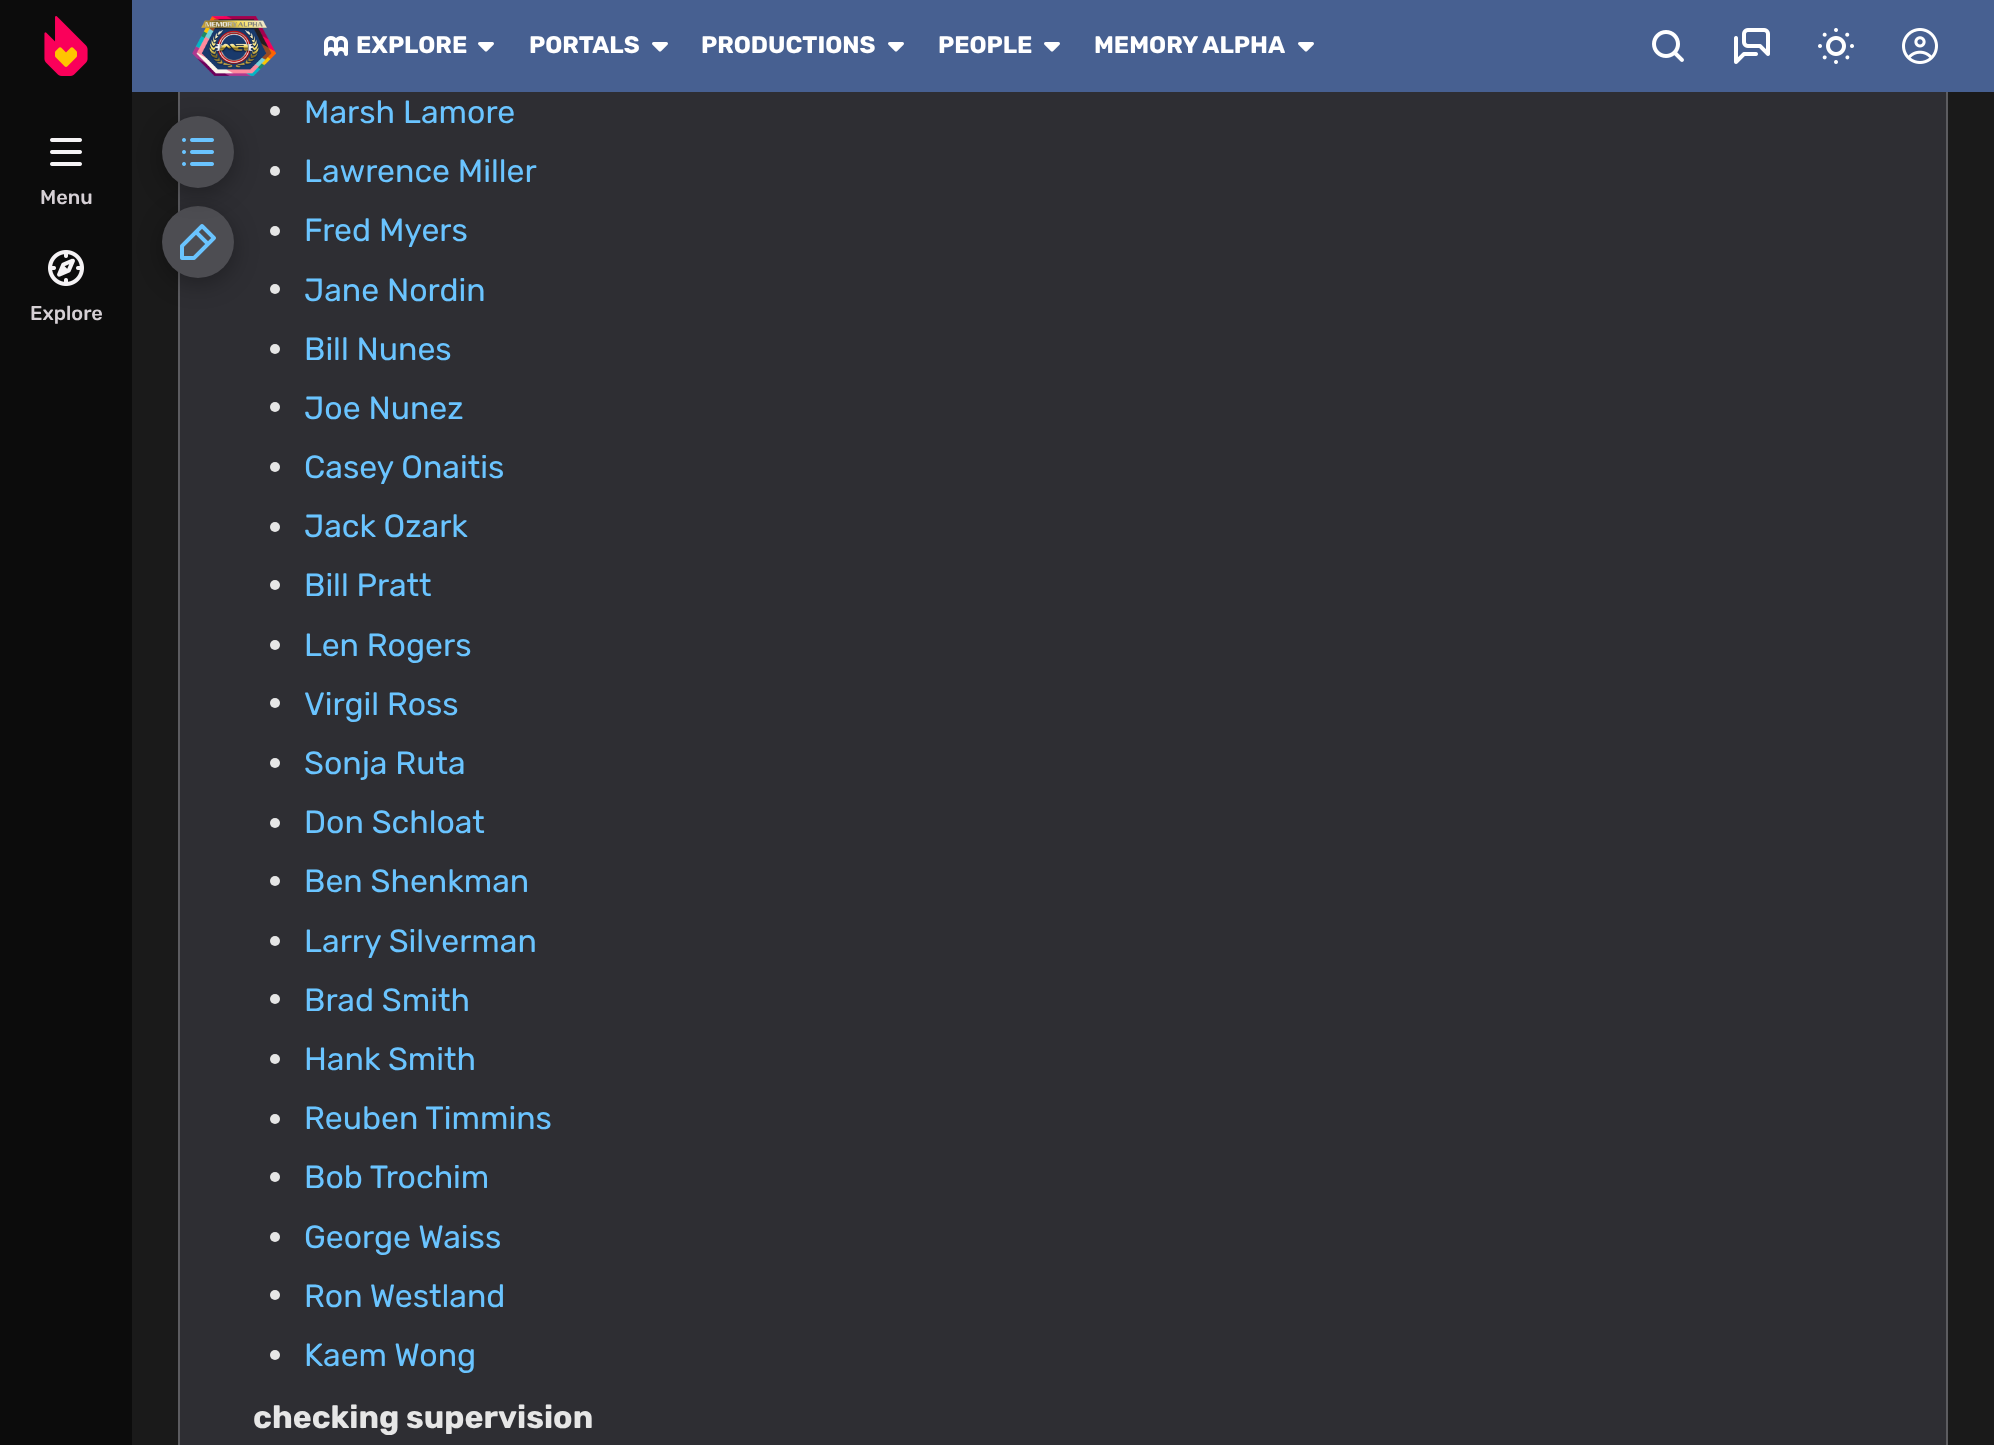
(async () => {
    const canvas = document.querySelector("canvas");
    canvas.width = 1994;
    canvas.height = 1445;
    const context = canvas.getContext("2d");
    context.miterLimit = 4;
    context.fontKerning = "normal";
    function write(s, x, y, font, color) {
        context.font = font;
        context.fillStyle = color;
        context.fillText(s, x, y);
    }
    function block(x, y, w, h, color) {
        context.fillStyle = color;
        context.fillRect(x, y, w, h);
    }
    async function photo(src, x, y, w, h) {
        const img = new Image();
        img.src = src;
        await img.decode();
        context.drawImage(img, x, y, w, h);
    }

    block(0, 0, 1994, 1445, "rgb(26, 26, 26)");
    context.strokeStyle = "rgb(92, 92, 96)";
    context.lineWidth = 2;
    context.strokeRect(179, -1, 1768, 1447);
    block(180, 92, 1766, 1353, "rgb(46, 46, 51)");
    context.fillStyle = "rgb(230, 230, 230)";
    context.beginPath();
    context.arc(275, 171, 5, 0, Math.PI * 2);
    context.fill();
    context.beginPath();
    context.arc(275, 231, 5, 0, Math.PI * 2);
    context.fill();
    context.beginPath();
    context.arc(275, 289, 5, 0, Math.PI * 2);
    context.fill();
    context.fillStyle = "rgba(0, 0, 0, 0.3)";
    context.filter = "blur(12px)";
    context.beginPath();
    context.roundRect(162, 212, 72, 72, 36);
    context.fill();
    context.filter = "none";
    context.fillStyle = "rgb(77, 77, 82)";
    context.beginPath();
    context.arc(198, 242, 36, 0, Math.PI * 2);
    context.fill();
    await photo("media/12.png", 180, 224, 36, 36);
    context.fillStyle = "rgb(230, 230, 230)";
    context.beginPath();
    context.arc(275, 111, 5, 0, Math.PI * 2);
    context.fill();
    context.fillStyle = "rgba(0, 0, 0, 0.3)";
    context.filter = "blur(12px)";
    context.beginPath();
    context.roundRect(162, 122, 72, 72, 36);
    context.fill();
    context.filter = "none";
    block(132, 0, 1862, 92, "rgb(71, 96, 145)");
    block(0, 0, 132, 1445, "rgb(12, 12, 12)");
    await photo("media/1.png", 44, 16, 44, 60);
    await photo("media/2.png", 192, 16, 84, 60);
    await photo("media/3.png", 324, 36, 24, 20);
    write("EXPLORE", 356, 53, "bold 24px Rubik", "rgb(255, 255, 255)");
    await photo("media/4.png", 478, 42, 16, 10);
    write("PORTALS", 529, 53, "bold 24px Rubik", "rgb(255, 255, 255)");
    await photo("media/4.png", 652, 42, 16, 10);
    write("PRODUCTIONS", 701, 53, "bold 24px Rubik", "rgb(255, 255, 255)");
    await photo("media/4.png", 888, 42, 16, 10);
    write("PEOPLE", 938, 53, "bold 24px Rubik", "rgb(255, 255, 255)");
    await photo("media/4.png", 1044, 42, 16, 10);
    write("MEMORY ALPHA", 1094, 53, "bold 24px Rubik", "rgb(255, 255, 255)");
    await photo("media/4.png", 1298, 42, 16, 10);
    await photo("media/5.png", 1652, 30, 32, 32);
    await photo("media/6.png", 1734, 28, 36, 36);
    await photo("media/7.png", 1818, 28, 36, 36);
    await photo("media/8.png", 1902, 28, 36, 36);
    await photo("media/9.png", 50, 138, 32, 28);
    write("Menu", 40, 204, "500 20px Rubik", "rgb(214, 208, 213)");
    await photo("media/10.png", 48, 250, 36, 36);
    write("Explore", 30, 320, "500 20px Rubik", "rgb(214, 208, 213)");
    context.fillStyle = "rgb(77, 77, 82)";
    context.beginPath();
    context.arc(198, 152, 36, 0, Math.PI * 2);
    context.fill();
    await photo("media/11.png", 182, 138, 32, 28);
    write("Marsh Lamore", 304, 123, "32px Rubik", "rgb(106, 196, 255)");
    write("Lawrence Miller", 304, 182, "32px Rubik", "rgb(106, 196, 255)");
    write("Fred Myers", 304, 241, "32px Rubik", "rgb(106, 196, 255)");
    write("Jane Nordin", 304, 301, "32px Rubik", "rgb(106, 196, 255)");
    context.fillStyle = "rgb(230, 230, 230)";
    context.beginPath();
    context.arc(275, 349, 5, 0, Math.PI * 2);
    context.fill();
    write("Bill Nunes", 304, 360, "32px Rubik", "rgb(106, 196, 255)");
    context.fillStyle = "rgb(230, 230, 230)";
    context.beginPath();
    context.arc(275, 407, 5, 0, Math.PI * 2);
    context.fill();
    write("Joe Nunez", 304, 419, "32px Rubik", "rgb(106, 196, 255)");
    context.fillStyle = "rgb(230, 230, 230)";
    context.beginPath();
    context.arc(275, 467, 5, 0, Math.PI * 2);
    context.fill();
    write("Casey Onaitis", 304, 478, "32px Rubik", "rgb(106, 196, 255)");
    context.fillStyle = "rgb(230, 230, 230)";
    context.beginPath();
    context.arc(275, 527, 5, 0, Math.PI * 2);
    context.fill();
    write("Jack Ozark", 304, 537, "32px Rubik", "rgb(106, 196, 255)");
    context.fillStyle = "rgb(230, 230, 230)";
    context.beginPath();
    context.arc(275, 585, 5, 0, Math.PI * 2);
    context.fill();
    write("Bill Pratt", 304, 596, "32px Rubik", "rgb(106, 196, 255)");
    context.fillStyle = "rgb(230, 230, 230)";
    context.beginPath();
    context.arc(275, 645, 5, 0, Math.PI * 2);
    context.fill();
    write("Len Rogers", 304, 656, "32px Rubik", "rgb(106, 196, 255)");
    context.fillStyle = "rgb(230, 230, 230)";
    context.beginPath();
    context.arc(275, 703, 5, 0, Math.PI * 2);
    context.fill();
    write("Virgil Ross", 304, 715, "32px Rubik", "rgb(106, 196, 255)");
    context.fillStyle = "rgb(230, 230, 230)";
    context.beginPath();
    context.arc(275, 763, 5, 0, Math.PI * 2);
    context.fill();
    write("Sonja Ruta", 304, 774, "32px Rubik", "rgb(106, 196, 255)");
    context.fillStyle = "rgb(230, 230, 230)";
    context.beginPath();
    context.arc(275, 823, 5, 0, Math.PI * 2);
    context.fill();
    write("Don Schloat", 304, 833, "32px Rubik", "rgb(106, 196, 255)");
    context.fillStyle = "rgb(230, 230, 230)";
    context.beginPath();
    context.arc(275, 881, 5, 0, Math.PI * 2);
    context.fill();
    write("Ben Shenkman", 304, 892, "32px Rubik", "rgb(106, 196, 255)");
    context.fillStyle = "rgb(230, 230, 230)";
    context.beginPath();
    context.arc(275, 941, 5, 0, Math.PI * 2);
    context.fill();
    write("Larry Silverman", 304, 952, "32px Rubik", "rgb(106, 196, 255)");
    context.fillStyle = "rgb(230, 230, 230)";
    context.beginPath();
    context.arc(275, 999, 5, 0, Math.PI * 2);
    context.fill();
    write("Brad Smith", 304, 1011, "32px Rubik", "rgb(106, 196, 255)");
    context.fillStyle = "rgb(230, 230, 230)";
    context.beginPath();
    context.arc(275, 1059, 5, 0, Math.PI * 2);
    context.fill();
    write("Hank Smith", 304, 1070, "32px Rubik", "rgb(106, 196, 255)");
    context.fillStyle = "rgb(230, 230, 230)";
    context.beginPath();
    context.arc(275, 1119, 5, 0, Math.PI * 2);
    context.fill();
    write("Reuben Timmins", 304, 1129, "32px Rubik", "rgb(106, 196, 255)");
    context.fillStyle = "rgb(230, 230, 230)";
    context.beginPath();
    context.arc(275, 1177, 5, 0, Math.PI * 2);
    context.fill();
    write("Bob Trochim", 304, 1188, "32px Rubik", "rgb(106, 196, 255)");
    context.fillStyle = "rgb(230, 230, 230)";
    context.beginPath();
    context.arc(275, 1237, 5, 0, Math.PI * 2);
    context.fill();
    write("George Waiss", 304, 1248, "32px Rubik", "rgb(106, 196, 255)");
    context.fillStyle = "rgb(230, 230, 230)";
    context.beginPath();
    context.arc(275, 1295, 5, 0, Math.PI * 2);
    context.fill();
    write("Ron Westland", 304, 1307, "32px Rubik", "rgb(106, 196, 255)");
    context.fillStyle = "rgb(230, 230, 230)";
    context.beginPath();
    context.arc(275, 1355, 5, 0, Math.PI * 2);
    context.fill();
    write("Kaem Wong", 304, 1366, "32px Rubik", "rgb(106, 196, 255)");
    write("checking supervision", 253, 1428, "bold 32px Rubik", "rgb(230, 230, 230)");
})();
